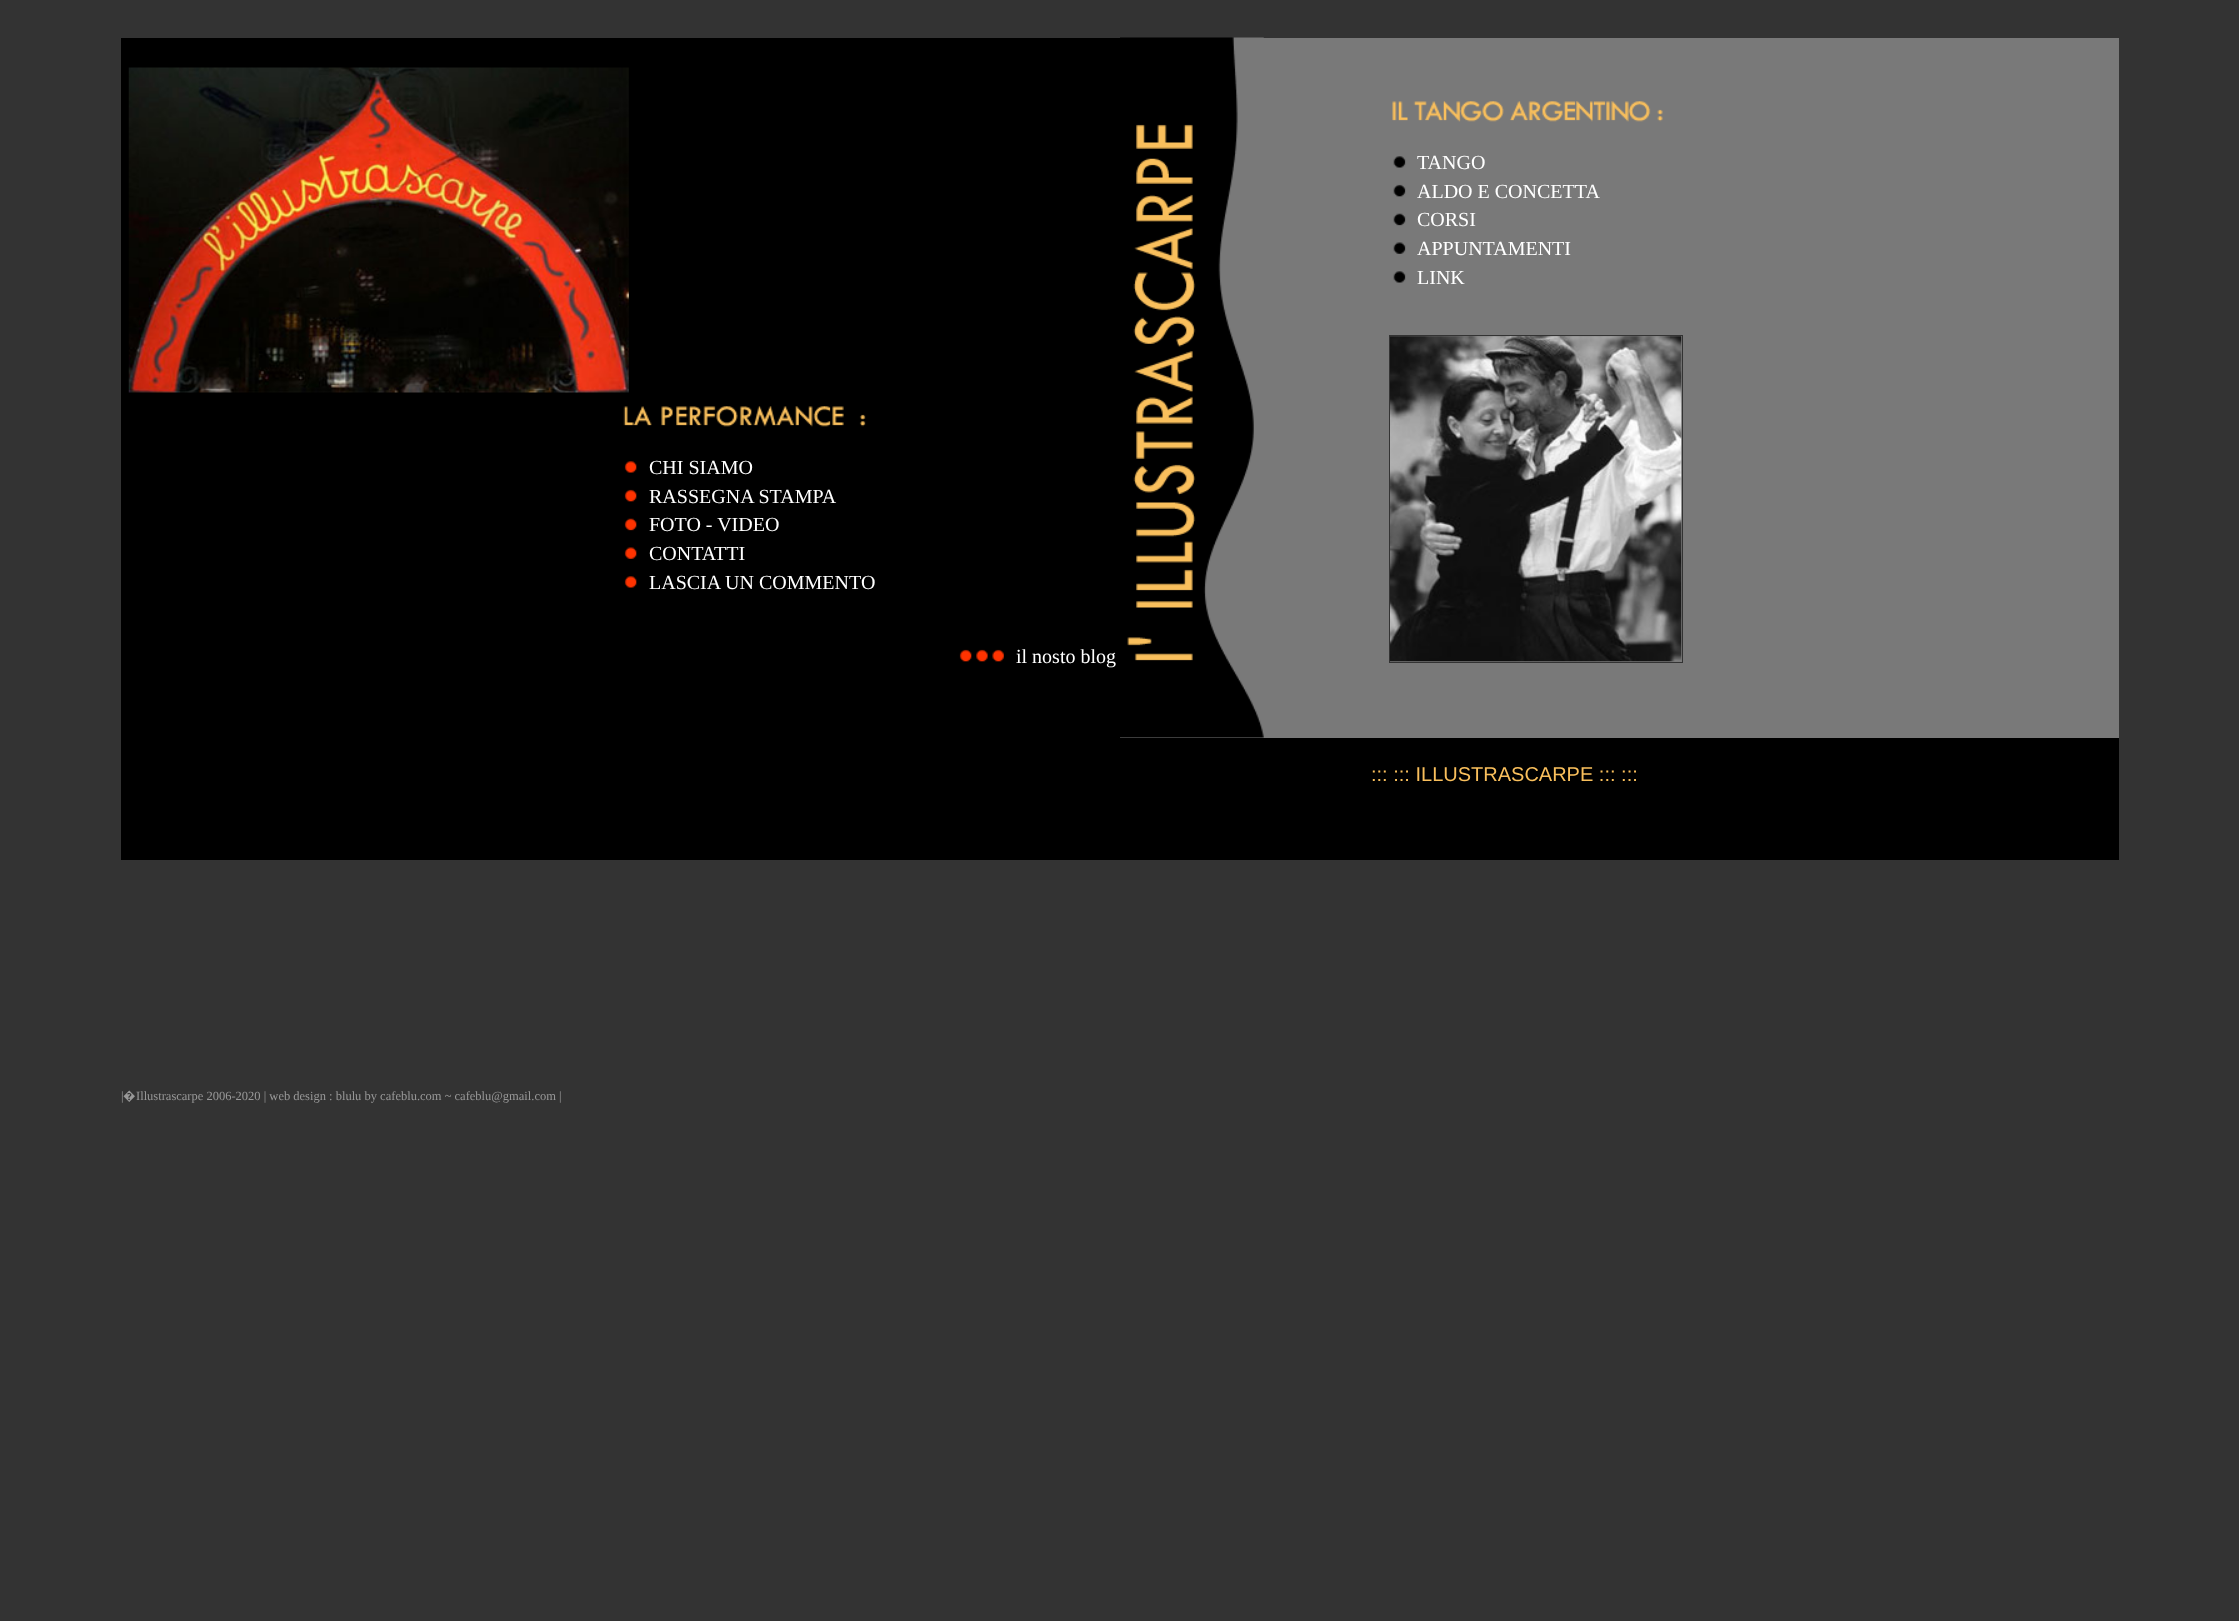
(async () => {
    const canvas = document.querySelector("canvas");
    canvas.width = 2239;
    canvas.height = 1621;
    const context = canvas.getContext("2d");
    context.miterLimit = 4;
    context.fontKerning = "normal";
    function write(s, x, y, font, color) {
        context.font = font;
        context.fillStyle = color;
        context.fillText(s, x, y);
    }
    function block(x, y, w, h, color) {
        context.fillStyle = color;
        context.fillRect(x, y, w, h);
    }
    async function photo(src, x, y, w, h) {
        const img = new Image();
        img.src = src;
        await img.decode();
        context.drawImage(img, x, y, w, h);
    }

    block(0, 0, 2239, 1621, "rgb(51, 51, 51)");
    block(1120, 38, 999, 700, "rgb(121, 121, 121)");
    await photo("media/1.png", 1120, 37, 144, 701);
    await photo("media/2.png", 1392, 101, 271, 21);
    await photo("media/3.png", 1393, 156, 13, 12);
    write("TANGO", 1417, 169, "20px Liberation Serif", "rgb(255, 255, 255)");
    await photo("media/4.png", 1393, 184, 13, 13);
    write("ALDO E CONCETTA", 1417, 198, "20px Liberation Serif", "rgb(255, 255, 255)");
    await photo("media/5.png", 1393, 213, 13, 13);
    write("CORSI", 1417, 226, "20px Liberation Serif", "rgb(255, 255, 255)");
    await photo("media/6.png", 1393, 242, 13, 12);
    write("APPUNTAMENTI", 1417, 255, "20px Liberation Serif", "rgb(255, 255, 255)");
    await photo("media/3.png", 1393, 271, 13, 12);
    write("LINK", 1417, 284, "20px Liberation Serif", "rgb(255, 255, 255)");
    context.strokeStyle = "rgb(51, 51, 51)";
    context.strokeRect(1389.5, 335.5, 293, 327);
    await photo("media/7.png", 1390, 336, 292, 326);
    block(121, 38, 999, 700, "rgb(0, 0, 0)");
    await photo("media/8.png", 128, 67, 501, 326);
    await photo("media/9.png", 623, 406, 243, 21);
    await photo("media/10.png", 624, 461, 13, 12);
    write("CHI SIAMO", 649, 474, "20px Liberation Serif", "rgb(255, 255, 255)");
    await photo("media/11.png", 624, 489, 13, 13);
    write("RASSEGNA STAMPA", 649, 503, "20px Liberation Serif", "rgb(255, 255, 255)");
    await photo("media/12.png", 624, 518, 13, 13);
    write("FOTO - VIDEO", 649, 531, "20px Liberation Serif", "rgb(255, 255, 255)");
    await photo("media/13.png", 624, 547, 13, 12);
    write("CONTATTI", 649, 560, "20px Liberation Serif", "rgb(255, 255, 255)");
    await photo("media/10.png", 624, 576, 13, 12);
    write("LASCIA UN COMMENTO", 649, 589, "20px Liberation Serif", "rgb(255, 255, 255)");
    await photo("media/14.png", 959, 649, 13, 13);
    await photo("media/15.png", 976, 649, 12, 13);
    await photo("media/16.png", 992, 649, 12, 13);
    write("il nosto blog", 1016, 663, "20px Liberation Serif", "rgb(255, 255, 255)");
    block(121, 738, 1998, 122, "rgb(0, 0, 0)");
    write("::: ::: ILLUSTRASCARPE ::: :::", 1371, 781, "20px Liberation Sans", "rgb(249, 191, 92)");
    write("|", 121, 1100, "12.5px Liberation Serif", "rgb(153, 153, 153)");
    write("�", 123, 1100, "100 12.5px Noto Sans", "rgb(153, 153, 153)");
    write("Illustrascarpe 2006-2020 | web design : blulu by cafeblu.com ~ cafeblu@gmail.com |", 136, 1100, "12.5px Liberation Serif", "rgb(153, 153, 153)");
})();
